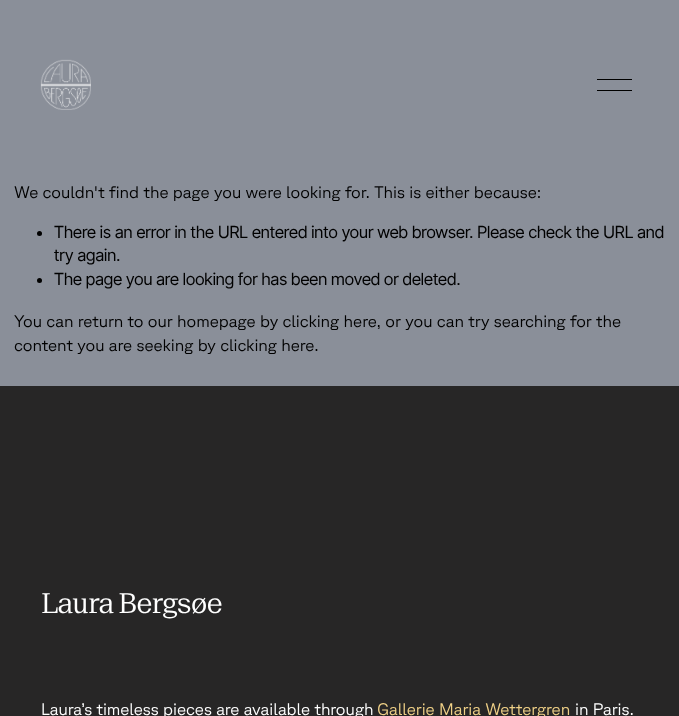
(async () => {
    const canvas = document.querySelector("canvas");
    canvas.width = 679;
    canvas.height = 716;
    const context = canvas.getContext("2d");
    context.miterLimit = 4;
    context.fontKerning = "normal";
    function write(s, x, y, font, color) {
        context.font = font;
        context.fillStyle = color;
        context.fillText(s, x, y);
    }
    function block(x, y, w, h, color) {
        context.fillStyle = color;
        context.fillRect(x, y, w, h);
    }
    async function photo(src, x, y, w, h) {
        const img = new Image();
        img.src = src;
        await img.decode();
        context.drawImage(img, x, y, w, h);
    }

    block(0, 0, 679, 716, "rgb(138, 143, 153)");
    await photo("media/1.png", 40, 59, 51, 51);
    block(597, 79, 35, 1, "rgb(0, 0, 0)");
    block(597, 90, 35, 1, "rgb(0, 0, 0)");
    write("We couldn't find the page you were looking for. This is either because:", 14, 198, "300 16.7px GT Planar", "rgb(0, 0, 0)");
    context.beginPath();
    context.arc(39.5, 233.5, 2.5, 0, Math.PI * 2);
    context.fill();
    write("There is an error in the URL entered into your web browser. Please check the URL and", 54, 238, "16.7px Inter Tight", "rgb(0, 0, 0)");
    write("try again.", 54, 261, "16.7px Inter Tight", "rgb(0, 0, 0)");
    context.beginPath();
    context.arc(39.5, 280.5, 2.5, 0, Math.PI * 2);
    context.fill();
    write("The page you are looking for has been moved or deleted.", 54, 285, "16.7px Inter Tight", "rgb(0, 0, 0)");
    write("You can return to our homepage by clicking here, or you can try searching for the", 14, 327, "300 16.7px GT Planar", "rgb(0, 0, 0)");
    write("content you are seeking by clicking here.", 14, 351, "300 16.7px GT Planar", "rgb(0, 0, 0)");
    block(0, 386, 679, 330, "rgb(39, 38, 38)");
    context.letterSpacing = "-0.9px";
    write("Laura Bergsøe", 41, 613, "300 29.75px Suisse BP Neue", "rgb(255, 255, 255)");
    context.letterSpacing = "0px";
    write("Laura’s timeless pieces are available through", 41, 715, "300 16.7px GT Planar", "rgb(255, 255, 255)");
    write("Gallerie Maria Wettergren", 377, 715, "300 16.7px GT Planar", "rgb(240, 209, 135)");
    write("in Paris.", 575, 715, "300 16.7px GT Planar", "rgb(255, 255, 255)");
})();
